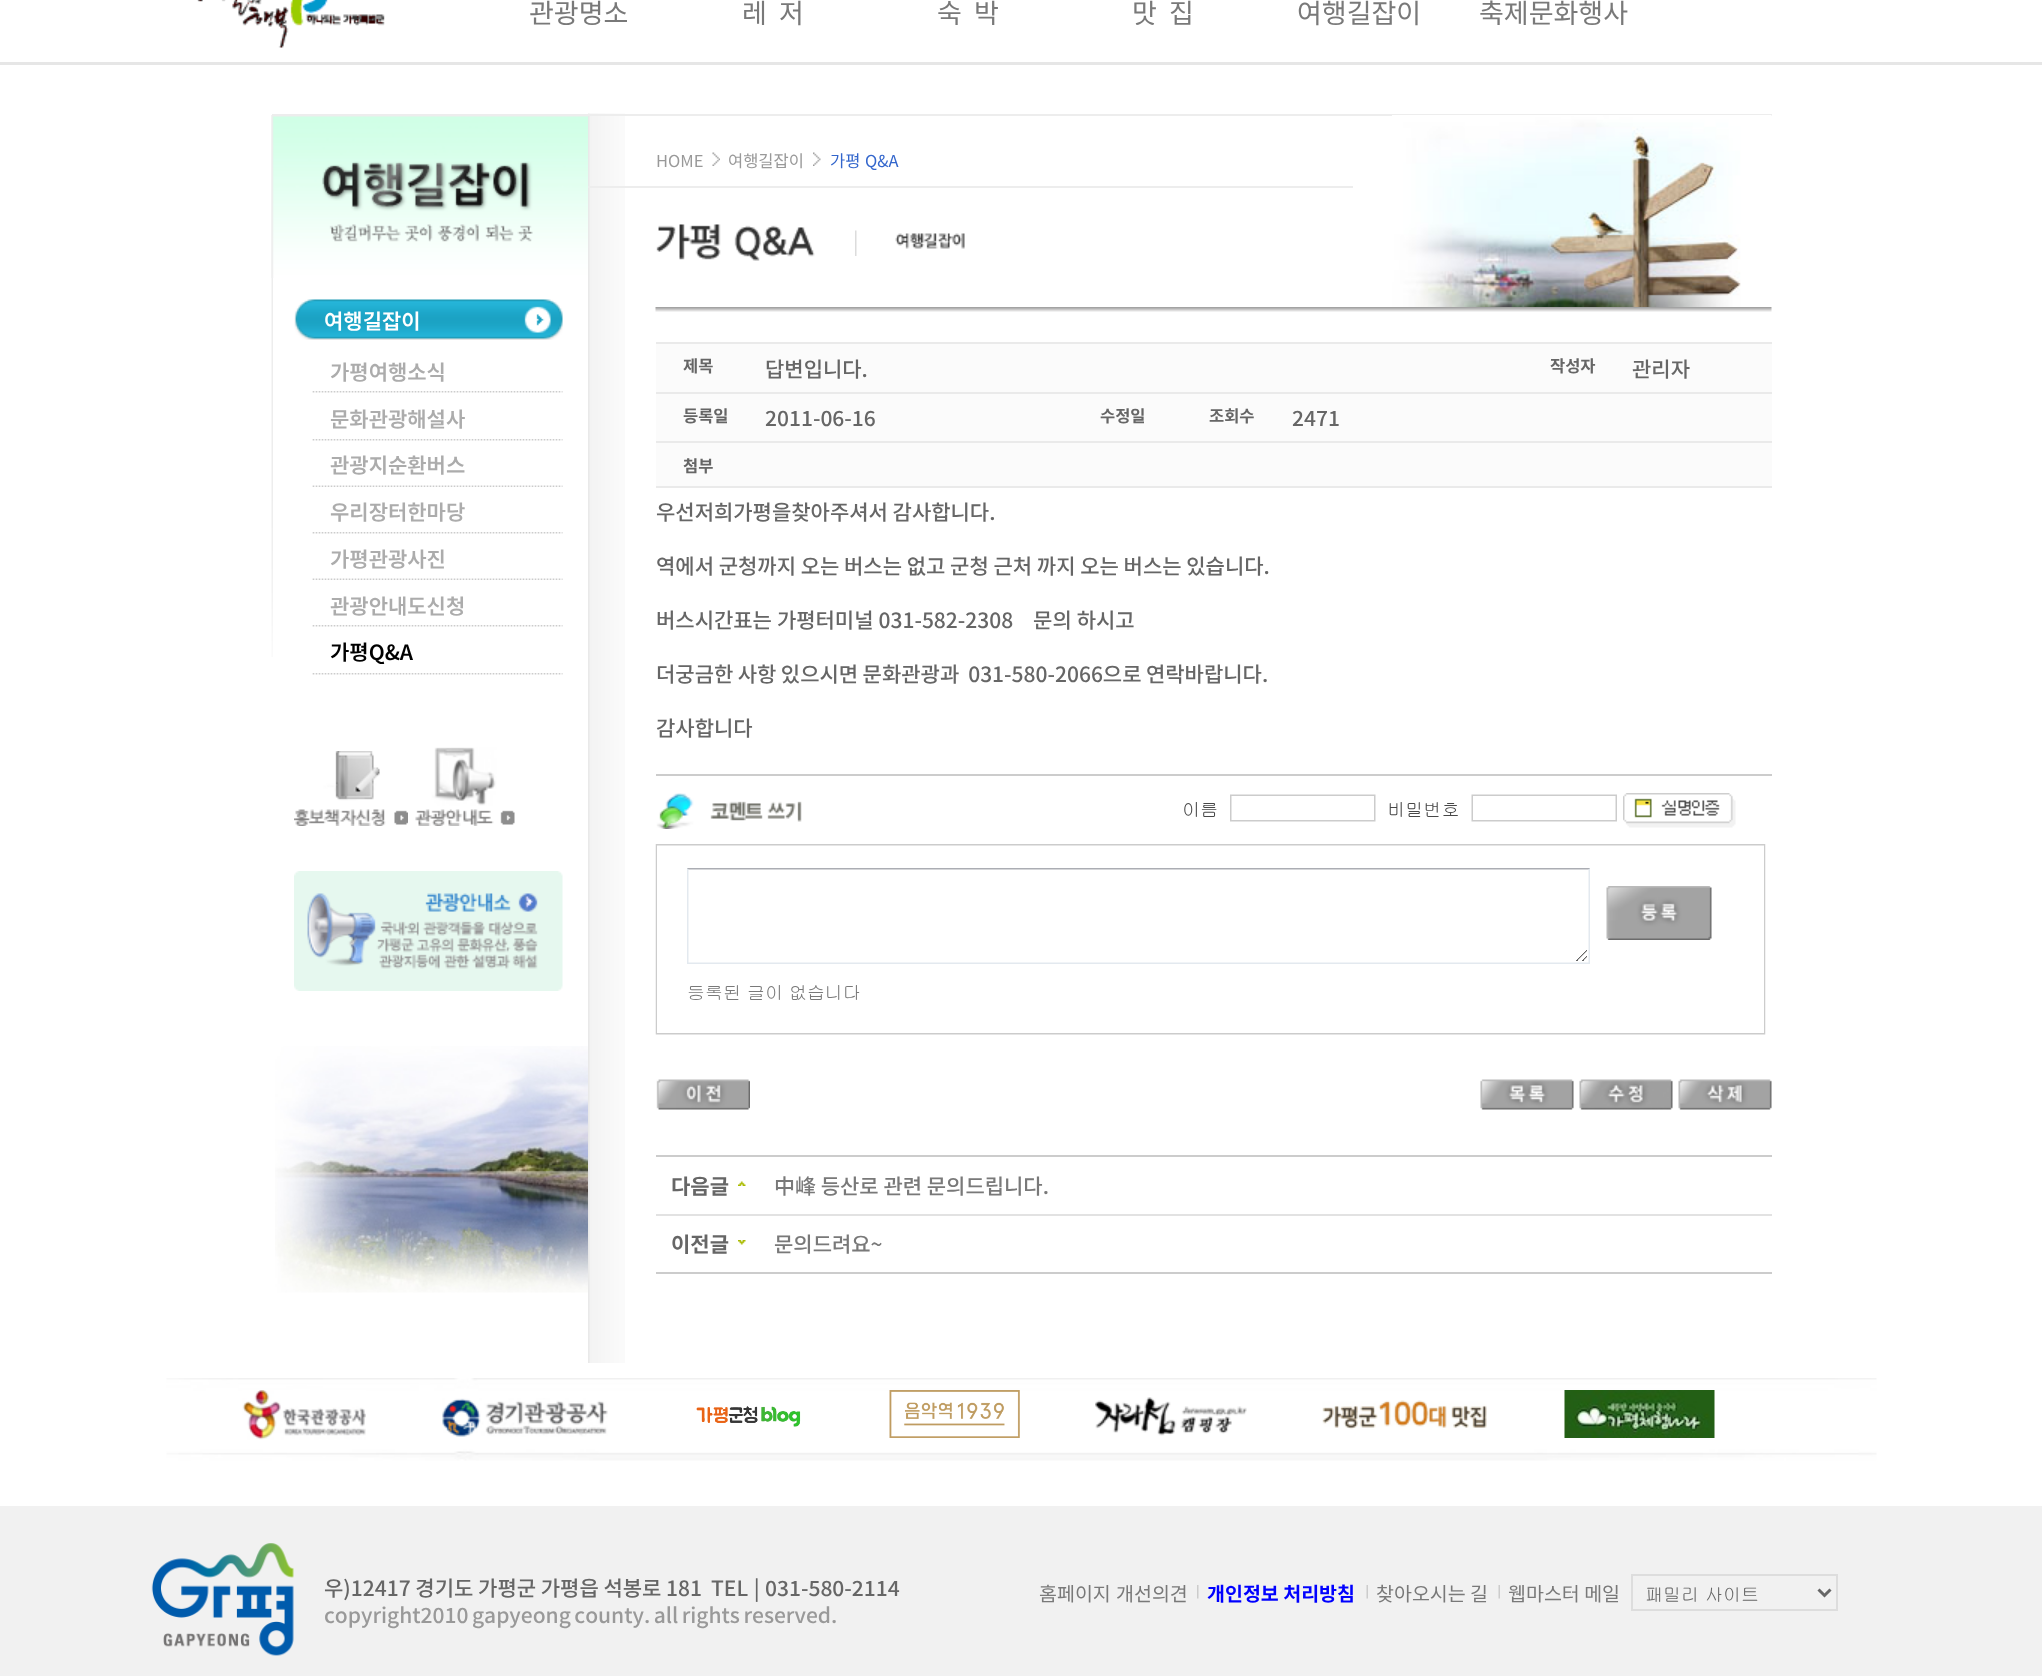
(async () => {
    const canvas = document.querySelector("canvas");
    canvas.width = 2042;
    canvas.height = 1676;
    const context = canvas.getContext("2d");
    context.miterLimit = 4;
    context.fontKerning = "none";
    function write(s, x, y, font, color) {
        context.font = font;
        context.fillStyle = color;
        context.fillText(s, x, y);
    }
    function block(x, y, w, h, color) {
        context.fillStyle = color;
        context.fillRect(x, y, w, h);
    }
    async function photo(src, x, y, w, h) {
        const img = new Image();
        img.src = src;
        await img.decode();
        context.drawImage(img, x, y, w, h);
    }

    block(0, 0, 2042, 1676, "rgb(255, 255, 255)");
    await photo("media/1.png", 197, 0, 188, 48);
    write("관광명소", 529, 23, "27px Noto Sans KR", "rgb(121, 121, 121)");
    write("레  저", 742, 23, "27px Noto Sans KR", "rgb(121, 121, 121)");
    write("숙  박", 937, 23, "27px Noto Sans KR", "rgb(121, 121, 121)");
    write("맛  집", 1132, 23, "27px Noto Sans KR", "rgb(121, 121, 121)");
    write("여행길잡이", 1297, 23, "27px Noto Sans KR", "rgb(121, 121, 121)");
    write("축제문화행사", 1479, 23, "27px Noto Sans KR", "rgb(121, 121, 121)");
    block(0, 62, 2042, 3, "rgb(230, 230, 230)");
    await photo("media/2.png", 588, 113, 37, 1250);
    block(272, 114, 1500, 2, "rgb(237, 237, 237)");
    await photo("media/3.png", 275, 1046, 313, 247);
    await photo("media/4.png", 271, 115, 2, 542);
    await photo("media/5.png", 271, 115, 317, 163);
    await photo("media/6.png", 294, 299, 269, 41);
    write("여행길잡이", 324, 329, "600 21px Noto Sans KR", "rgb(255, 255, 255)");
    await photo("media/7.png", 312, 391, 251, 2);
    write("가평여행소식", 330, 380, "600 21px Noto Sans KR", "rgb(172, 172, 172)");
    await photo("media/7.png", 312, 439, 251, 2);
    write("문화관광해설사", 330, 427, "600 21px Noto Sans KR", "rgb(172, 172, 172)");
    await photo("media/8.png", 312, 485, 251, 2);
    write("관광지순환버스", 330, 473, "600 21px Noto Sans KR", "rgb(172, 172, 172)");
    await photo("media/7.png", 312, 532, 251, 2);
    write("우리장터한마당", 330, 520, "600 21px Noto Sans KR", "rgb(172, 172, 172)");
    await photo("media/8.png", 312, 578, 251, 2);
    write("가평관광사진", 330, 567, "600 21px Noto Sans KR", "rgb(172, 172, 172)");
    await photo("media/7.png", 312, 625, 251, 2);
    write("관광안내도신청", 330, 614, "600 21px Noto Sans KR", "rgb(172, 172, 172)");
    await photo("media/7.png", 312, 673, 251, 2);
    write("가평Q&A", 330, 660, "600 21px Noto Sans KR", "rgb(0, 0, 0)");
    await photo("media/9.png", 294, 751, 114, 75);
    await photo("media/10.png", 415, 747, 100, 79);
    await photo("media/11.png", 294, 871, 269, 120);
    await photo("media/12.png", 655, 307, 1117, 5);
    block(588, 186, 765, 2, "rgb(237, 237, 237)");
    await photo("media/13.png", 712, 152, 8, 14);
    write("HOME", 656, 167, "16.5px Noto Sans KR", "rgb(153, 153, 153)");
    await photo("media/14.png", 813, 152, 8, 14);
    write("여행길잡이", 728, 167, "16.5px Noto Sans KR", "rgb(153, 153, 153)");
    context.wordSpacing = "1px";
    write("가평 Q&A", 830, 167, "16.5px Noto Sans KR", "rgb(51, 102, 204)");
    await photo("media/15.png", 1392, 115, 380, 192);
    await photo("media/16.png", 855, 230, 2, 26);
    await photo("media/17.png", 656, 224, 159, 37);
    await photo("media/18.png", 895, 233, 70, 16);
    block(656, 344, 1116, 48, "rgb(251, 251, 251)");
    block(656, 342, 1116, 2, "rgb(234, 234, 234)");
    context.wordSpacing = "0px";
    write("제목", 683, 372, "bold 16.5px Noto Sans KR", "rgb(102, 102, 102)");
    write("답변입니다.", 765, 377, "500 21px Noto Sans KR", "rgb(102, 102, 102)");
    write("작성자", 1550, 372, "bold 16.5px Noto Sans KR", "rgb(102, 102, 102)");
    write("관리자", 1632, 377, "500 21px Noto Sans KR", "rgb(102, 102, 102)");
    block(656, 394, 1116, 47, "rgb(251, 251, 251)");
    block(656, 392, 1116, 2, "rgb(234, 234, 234)");
    write("등록일", 683, 422, "bold 16.5px Noto Sans KR", "rgb(102, 102, 102)");
    write("2011-06-16", 765, 426, "500 21px Noto Sans KR", "rgb(102, 102, 102)");
    write("수정일", 1100, 422, "bold 16.5px Noto Sans KR", "rgb(102, 102, 102)");
    write("조회수", 1209, 422, "bold 16.5px Noto Sans KR", "rgb(102, 102, 102)");
    write("2471", 1292, 426, "500 21px Noto Sans KR", "rgb(102, 102, 102)");
    block(656, 443, 1116, 43, "rgb(251, 251, 251)");
    block(656, 441, 1116, 2, "rgb(234, 234, 234)");
    write("첨부", 683, 472, "bold 16.5px Noto Sans KR", "rgb(102, 102, 102)");
    block(656, 486, 1116, 2, "rgb(234, 234, 234)");
    write("우선저희가평을찾아주셔서 감사합니다.", 656, 520, "500 21px Noto Sans KR", "rgb(102, 102, 102)");
    write("역에서 군청까지 오는 버스는 없고 군청 근처 까지 오는 버스는 있습니다.", 656, 574, "500 21px Noto Sans KR", "rgb(102, 102, 102)");
    context.wordSpacing = "0.25px";
    write("버스시간표는 가평터미널 031-582-2308    문의 하시고", 656, 628, "500 21px Noto Sans KR", "rgb(102, 102, 102)");
    context.wordSpacing = "-0.25px";
    write("더궁금한 사항 있으시면 문화관광과  031-580-2066으로 연락바랍니다.", 656, 682, "500 21px Noto Sans KR", "rgb(102, 102, 102)");
    context.wordSpacing = "0px";
    write("감사합니다", 656, 736, "500 21px Noto Sans KR", "rgb(102, 102, 102)");
    block(656, 774, 1116, 2, "rgb(204, 204, 204)");
    await photo("media/19.png", 655, 793, 1111, 242);
    await photo("media/20.png", 656, 1079, 94, 31);
    await photo("media/21.png", 1480, 1079, 94, 31);
    await photo("media/22.png", 1579, 1079, 94, 31);
    await photo("media/23.png", 1678, 1079, 94, 31);
    block(656, 1155, 1116, 2, "rgb(204, 204, 204)");
    block(656, 1272, 1116, 2, "rgb(204, 204, 204)");
    block(656, 1214, 1116, 2, "rgb(226, 226, 226)");
    await photo("media/24.png", 738, 1181, 8, 5);
    write("다음글", 671, 1194, "bold 21px Noto Sans KR", "rgb(102, 102, 102)");
    write("中峰 등산로 관련 문의드립니다.", 774, 1194, "500 21px Noto Sans KR", "rgb(121, 121, 121)");
    await photo("media/25.png", 738, 1240, 8, 5);
    write("이전글", 671, 1252, "bold 21px Noto Sans KR", "rgb(102, 102, 102)");
    write("문의드려요~", 774, 1252, "500 21px Noto Sans KR", "rgb(121, 121, 121)");
    await photo("media/26.png", 166, 1378, 1711, 83);
    await photo("media/27.png", 242, 1390, 124, 50);
    await photo("media/28.png", 442, 1398, 166, 39);
    await photo("media/29.png", 696, 1406, 105, 21);
    await photo("media/30.png", 889, 1390, 131, 48);
    await photo("media/31.png", 1095, 1397, 152, 39);
    await photo("media/32.png", 1322, 1400, 165, 30);
    await photo("media/33.png", 1564, 1390, 151, 48);
    block(0, 1506, 2042, 170, "rgb(241, 241, 241)");
    await photo("media/34.png", 151, 1543, 143, 113);
    write("우)12417 경기도 가평군 가평읍 석봉로 181", 324, 1596, "500 21px Noto Sans KR", "rgb(102, 102, 102)");
    context.wordSpacing = "1px";
    write("TEL |", 711, 1596, "500 21px Noto Sans KR", "rgb(102, 102, 102)");
    context.wordSpacing = "0px";
    write("031-580-2114", 765, 1596, "500 21px Noto Sans KR", "rgb(102, 102, 102)");
    context.wordSpacing = "-1.25px";
    write("copyright2010 gapyeong county. all rights reserved.", 324, 1623, "500 21px Noto Sans KR", "rgb(153, 153, 153)");
    context.wordSpacing = "0px";
    write("홈페이지", 1039, 1601, "19.5px Noto Sans KR", "rgb(121, 121, 121)");
    write("개선의견", 1116, 1601, "19.5px Noto Sans KR", "rgb(121, 121, 121)");
    await photo("media/35.png", 1197, 1585, 2, 14);
    write("개인정보 처리방침", 1207, 1601, "bold 19.5px Noto Sans KR", "rgb(0, 0, 255)");
    await photo("media/36.png", 1366, 1585, 2, 14);
    write("찾아오시는 길", 1376, 1601, "19.5px Noto Sans KR", "rgb(121, 121, 121)");
    await photo("media/36.png", 1498, 1585, 2, 14);
    write("웹마스터 메일", 1508, 1601, "19.5px Noto Sans KR", "rgb(121, 121, 121)");
    context.strokeStyle = "rgb(221, 221, 221)";
    context.lineWidth = 2;
    context.strokeRect(1632, 1575, 205, 35);
    context.beginPath();
    context.moveTo(1818.5, 1589.5);
    context.lineTo(1824.5, 1595.5);
    context.lineTo(1830.5, 1589.5);
    context.strokeStyle = "rgb(102, 102, 102)";
    context.lineWidth = 3;
    context.stroke();
    write("패밀리 사이트", 1645, 1601, "18px Gulim", "rgb(102, 102, 102)");
})();
